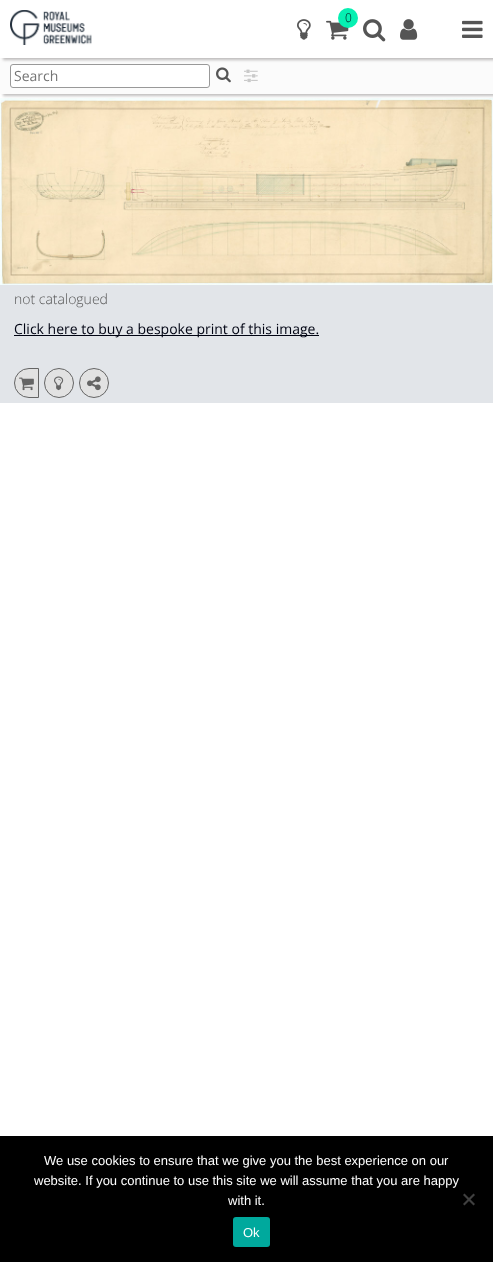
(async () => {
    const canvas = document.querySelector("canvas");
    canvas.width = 493;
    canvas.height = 1262;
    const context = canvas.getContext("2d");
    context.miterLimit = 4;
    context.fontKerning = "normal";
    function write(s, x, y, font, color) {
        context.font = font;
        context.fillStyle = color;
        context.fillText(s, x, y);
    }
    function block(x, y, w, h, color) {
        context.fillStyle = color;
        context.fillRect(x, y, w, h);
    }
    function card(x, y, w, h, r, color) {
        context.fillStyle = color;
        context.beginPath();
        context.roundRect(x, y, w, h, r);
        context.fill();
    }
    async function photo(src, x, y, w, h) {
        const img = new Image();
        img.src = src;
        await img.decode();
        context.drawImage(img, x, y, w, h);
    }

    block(0, 0, 493, 1262, "rgb(255, 255, 255)");
    await photo("media/9.png", 0, 98, 493, 187);
    context.fillStyle = "rgba(74, 69, 69, 0.35)";
    context.filter = "blur(1.5px)";
    context.beginPath();
    context.rect(3, 60, 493, 36);
    context.fill();
    context.filter = "none";
    block(0, 58, 493, 36, "rgb(251, 251, 251)");
    context.fillStyle = "rgb(255, 255, 255)";
    context.beginPath();
    context.roundRect(10.5, 64.5, 199, 23, 2.5);
    context.fill();
    context.strokeStyle = "rgb(153, 153, 153)";
    context.stroke();
    context.fillStyle = "rgba(74, 69, 69, 0.35)";
    context.filter = "blur(1.5px)";
    context.beginPath();
    context.rect(3, 2, 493, 58);
    context.fill();
    context.filter = "none";
    block(0, 0, 493, 58, "rgb(255, 255, 255)");
    await photo("media/1.png", 10, 10, 82, 35);
    await photo("media/2.png", 326, 20, 23, 20);
    context.fillStyle = "rgb(6, 240, 178)";
    context.beginPath();
    context.arc(348, 18, 10, 0, Math.PI * 2);
    context.fill();
    write("0", 345, 22, "300 12px Open Sans", "rgb(1, 4, 19)");
    await photo("media/3.png", 297, 19, 14, 21);
    await photo("media/4.png", 363, 19, 23, 23);
    await photo("media/5.png", 400, 19, 18, 21);
    await photo("media/6.png", 462, 20, 21, 18);
    write("Search", 14, 81, "14px Open Sans", "rgb(117, 117, 117)");
    await photo("media/7.png", 216, 67, 15, 16);
    await photo("media/8.png", 244, 69, 14, 14);
    block(0, 285, 493, 118, "rgb(226, 229, 233)");
    write("not catalogued", 14, 304, "300 14px Open Sans", "rgb(85, 85, 85)");
    block(14, 335, 305, 1, "rgb(1, 4, 19)");
    write("Click here to buy a bespoke print of this image.", 14, 334, "14px Open Sans", "rgb(1, 4, 19)");
    context.fillStyle = "rgb(226, 226, 226)";
    context.beginPath();
    context.roundRect(14.5, 368.5, 24, 29, [14.5, 0, 0, 14.5]);
    context.fill();
    context.strokeStyle = "rgb(101, 101, 101)";
    context.stroke();
    await photo("media/10.png", 19, 377, 15, 14);
    context.beginPath();
    context.arc(59, 383, 14.5, 0, Math.PI * 2);
    context.fill();
    context.stroke();
    await photo("media/11.png", 54, 376, 10, 15);
    context.beginPath();
    context.arc(94, 383, 14.5, 0, Math.PI * 2);
    context.fill();
    context.stroke();
    await photo("media/12.png", 87, 376, 14, 15);
    block(0, 1136, 493, 126, "rgb(0, 0, 0)");
    write("We use cookies to ensure that we give you the best experience on our", 44, 1165, "13px Liberation Sans", "rgb(255, 255, 255)");
    write("website. If you continue to use this site we will assume that you are happy", 34, 1185, "13px Liberation Sans", "rgb(255, 255, 255)");
    write("with it.", 228, 1205, "13px Liberation Sans", "rgb(255, 255, 255)");
    context.fillStyle = "rgb(64, 64, 64)";
    context.beginPath();
    context.moveTo(473.5, 1193.5);
    context.lineTo(475, 1195);
    context.lineTo(464.5, 1205.5);
    context.lineTo(463, 1204);
    context.closePath();
    context.fill();
    context.beginPath();
    context.moveTo(463, 1195);
    context.lineTo(464.5, 1193.5);
    context.lineTo(475, 1204);
    context.lineTo(473.5, 1205.5);
    context.closePath();
    context.fill();
    card(233, 1217, 37, 30, 3, "rgb(0, 169, 157)");
    write("Ok", 243, 1237, "13px Liberation Sans", "rgb(255, 255, 255)");
})();
